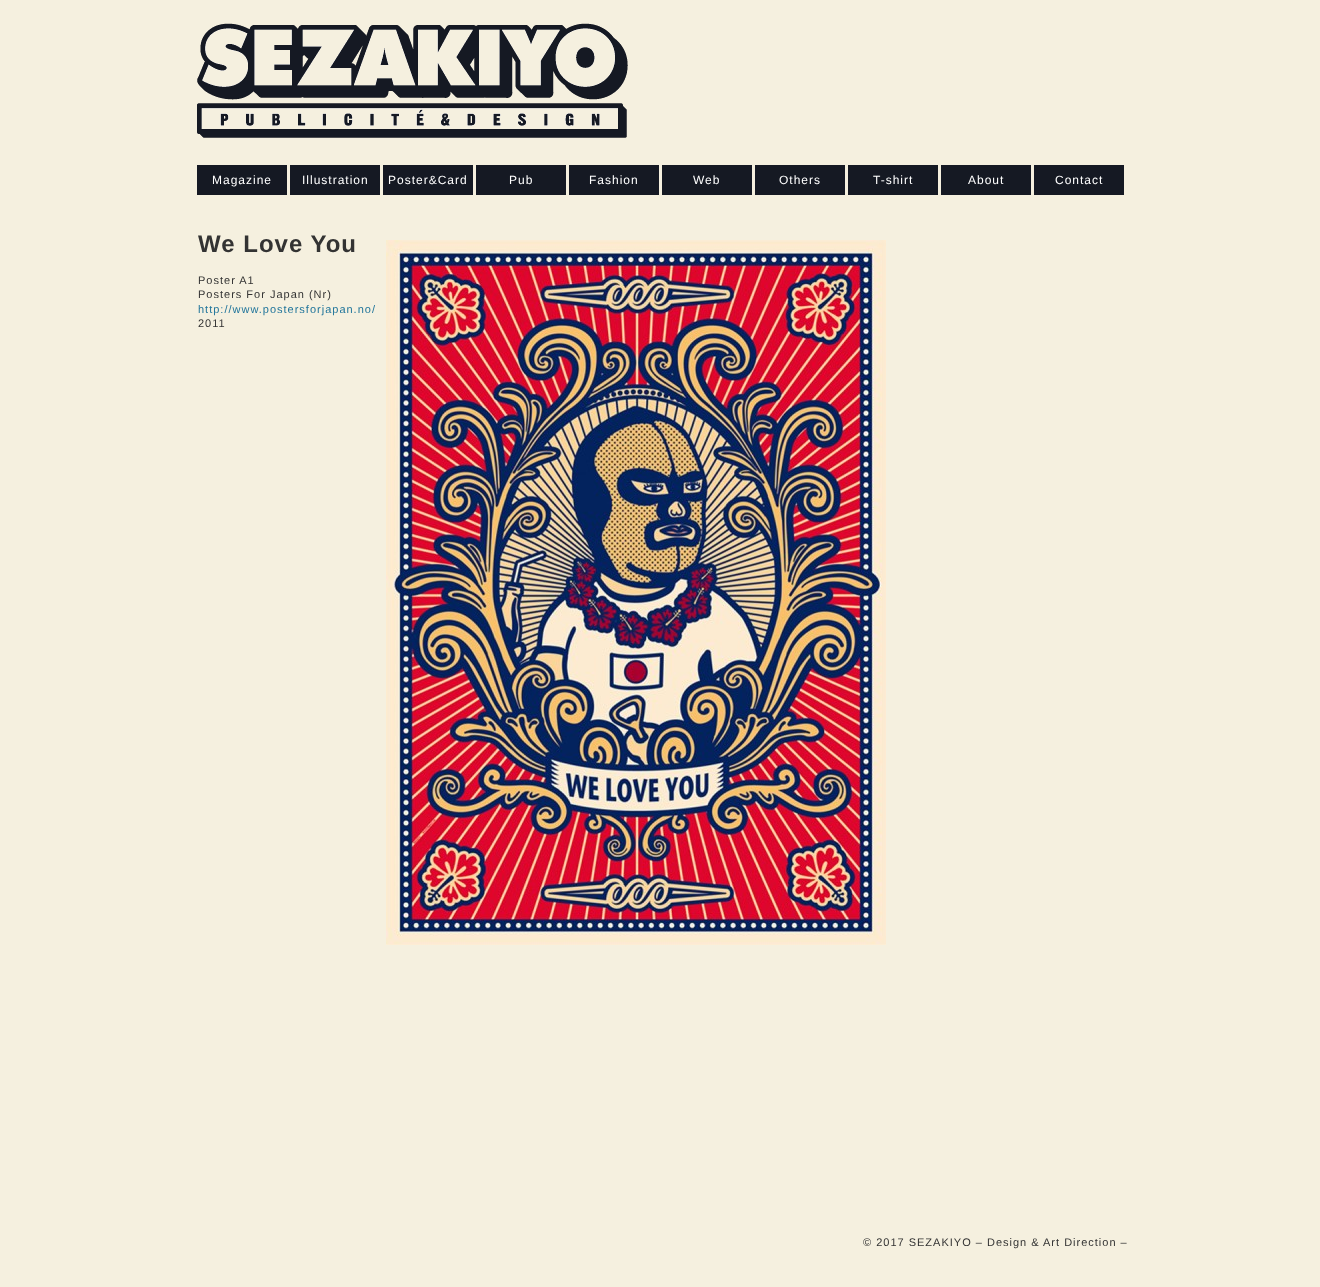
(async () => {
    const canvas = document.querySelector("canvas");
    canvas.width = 1320;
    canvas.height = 1287;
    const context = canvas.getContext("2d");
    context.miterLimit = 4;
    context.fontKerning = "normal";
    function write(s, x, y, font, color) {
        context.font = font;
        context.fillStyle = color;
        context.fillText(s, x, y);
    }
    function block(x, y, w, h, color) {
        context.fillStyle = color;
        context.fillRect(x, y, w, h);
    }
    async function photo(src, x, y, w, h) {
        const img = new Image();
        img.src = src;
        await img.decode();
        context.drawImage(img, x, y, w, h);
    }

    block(0, 0, 1320, 1287, "rgb(245, 240, 223)");
    await photo("media/1.png", 197, 23, 431, 115);
    block(197, 165, 90, 30, "rgb(21, 25, 35)");
    context.letterSpacing = "1px";
    write("Magazine", 212, 184, "12px Liberation Sans", "rgb(255, 255, 255)");
    block(290, 165, 90, 30, "rgb(21, 25, 35)");
    write("Illustration", 302, 184, "12px Liberation Sans", "rgb(255, 255, 255)");
    block(383, 165, 90, 30, "rgb(21, 25, 35)");
    write("Poster&Card", 388, 184, "12px Liberation Sans", "rgb(255, 255, 255)");
    block(476, 165, 90, 30, "rgb(21, 25, 35)");
    write("Pub", 509, 184, "12px Liberation Sans", "rgb(255, 255, 255)");
    block(569, 165, 90, 30, "rgb(21, 25, 35)");
    write("Fashion", 589, 184, "12px Liberation Sans", "rgb(255, 255, 255)");
    block(662, 165, 90, 30, "rgb(21, 25, 35)");
    write("Web", 693, 184, "12px Liberation Sans", "rgb(255, 255, 255)");
    block(755, 165, 90, 30, "rgb(21, 25, 35)");
    write("Others", 779, 184, "12px Liberation Sans", "rgb(255, 255, 255)");
    block(848, 165, 90, 30, "rgb(21, 25, 35)");
    write("T-shirt", 873, 184, "12px Liberation Sans", "rgb(255, 255, 255)");
    block(941, 165, 90, 30, "rgb(21, 25, 35)");
    write("About", 968, 184, "12px Liberation Sans", "rgb(255, 255, 255)");
    block(1034, 165, 90, 30, "rgb(21, 25, 35)");
    write("Contact", 1055, 184, "12px Liberation Sans", "rgb(255, 255, 255)");
    write("We Love You", 198, 252, "bold 24px Liberation Sans", "rgb(51, 51, 51)");
    write("Poster A1", 198, 284, "11px Liberation Sans", "rgb(51, 51, 51)");
    write("Posters For Japan (Nr)", 198, 298, "11px Liberation Sans", "rgb(51, 51, 51)");
    write("http://www.postersforjapan.no/", 198, 313, "11px Liberation Sans", "rgb(33, 117, 155)");
    write("2011", 198, 327, "11px Liberation Sans", "rgb(51, 51, 51)");
    await photo("media/2.png", 386, 240, 500, 705);
    write("© 2017 SEZAKIYO – Design & Art Direction –", 863, 1246, "11px Liberation Sans", "rgb(51, 51, 51)");
})();
